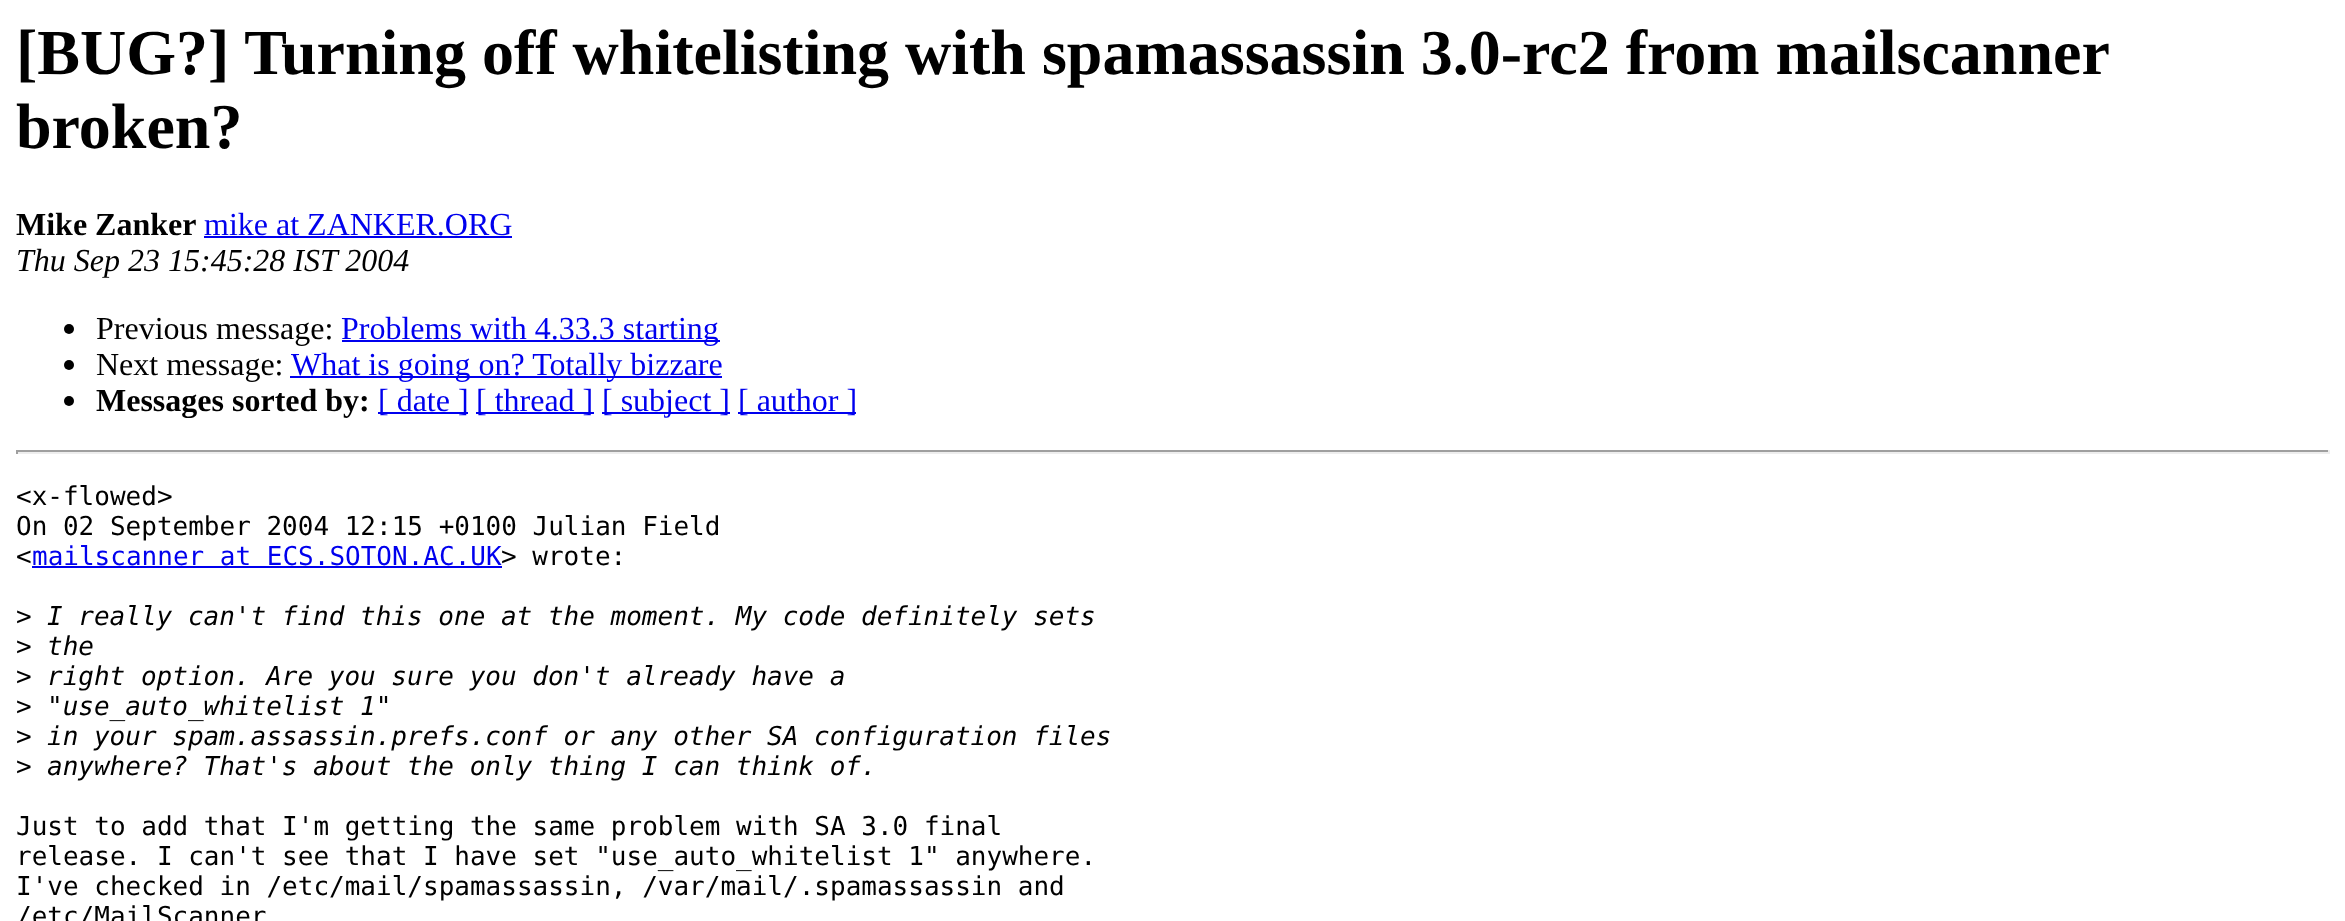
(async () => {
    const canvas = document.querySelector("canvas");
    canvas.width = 2345;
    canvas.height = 921;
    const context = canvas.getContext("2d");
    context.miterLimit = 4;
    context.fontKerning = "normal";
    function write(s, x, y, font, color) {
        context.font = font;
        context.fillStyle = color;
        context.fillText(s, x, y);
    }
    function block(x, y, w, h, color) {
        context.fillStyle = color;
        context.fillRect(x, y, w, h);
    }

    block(0, 0, 2345, 921, "rgb(255, 255, 255)");
    write("[BUG?] Turning off whitelisting with spamassassin 3.0-rc2 from mailscanner", 16, 74, "bold 64px Liberation Serif", "rgb(0, 0, 0)");
    write("broken?", 16, 148, "bold 64px Liberation Serif", "rgb(0, 0, 0)");
    write("Mike Zanker", 16, 235, "bold 32px Liberation Serif", "rgb(0, 0, 0)");
    write("mike at ZANKER.ORG", 204, 235, "32px Liberation Serif", "rgb(0, 0, 238)");
    block(204, 236, 308, 2, "rgb(0, 0, 238)");
    write("Thu Sep 23 15:45:28 IST 2004", 16, 271, "italic 32px Liberation Serif", "rgb(0, 0, 0)");
    context.beginPath();
    context.arc(69, 329, 5, 0, Math.PI * 2);
    context.fill();
    write("Previous message:", 96, 339, "32px Liberation Serif", "rgb(0, 0, 0)");
    block(342, 340, 378, 2, "rgb(0, 0, 238)");
    write("Problems with 4.33.3 starting", 341, 339, "32px Liberation Serif", "rgb(0, 0, 238)");
    context.fillStyle = "rgb(0, 0, 0)";
    context.beginPath();
    context.arc(69, 365, 5, 0, Math.PI * 2);
    context.fill();
    write("Next message:", 96, 375, "32px Liberation Serif", "rgb(0, 0, 0)");
    block(290, 376, 432, 2, "rgb(0, 0, 238)");
    write("What is going on? Totally bizzare", 291, 375, "32px Liberation Serif", "rgb(0, 0, 238)");
    context.fillStyle = "rgb(0, 0, 0)";
    context.beginPath();
    context.arc(69, 401, 5, 0, Math.PI * 2);
    context.fill();
    write("Messages sorted by:", 96, 411, "bold 32px Liberation Serif", "rgb(0, 0, 0)");
    block(378, 412, 90, 2, "rgb(0, 0, 238)");
    write("[ date ]", 378, 411, "32px Liberation Serif", "rgb(0, 0, 238)");
    block(476, 412, 118, 2, "rgb(0, 0, 238)");
    write("[ thread ]", 476, 411, "32px Liberation Serif", "rgb(0, 0, 238)");
    block(602, 412, 128, 2, "rgb(0, 0, 238)");
    write("[ subject ]", 602, 411, "32px Liberation Serif", "rgb(0, 0, 238)");
    block(738, 412, 118, 2, "rgb(0, 0, 238)");
    write("[ author ]", 738, 411, "32px Liberation Serif", "rgb(0, 0, 238)");
    block(16, 450, 2314, 2, "rgb(159, 159, 159)");
    block(2328, 450, 2, 4, "rgb(238, 238, 238)");
    block(16, 452, 2314, 2, "rgb(238, 238, 238)");
    block(16, 450, 2, 4, "rgb(159, 159, 159)");
    write("<x-flowed>", 16, 505, "26px DejaVu Sans Mono", "rgb(0, 0, 0)");
    write("On 02 September 2004 12:15 +0100 Julian Field", 16, 535, "26px DejaVu Sans Mono", "rgb(0, 0, 0)");
    write("<", 16, 565, "26px DejaVu Sans Mono", "rgb(0, 0, 0)");
    write("mailscanner at ECS.SOTON.AC.UK", 32, 565, "26px DejaVu Sans Mono", "rgb(0, 0, 238)");
    block(32, 566, 470, 2, "rgb(0, 0, 238)");
    write("> wrote:", 501, 565, "26px DejaVu Sans Mono", "rgb(0, 0, 0)");
    write(">", 16, 625, "26px DejaVu Sans Mono", "rgb(0, 0, 0)");
    write("I really can't find this one at the moment. My code definitely sets", 47, 625, "italic 26px DejaVu Sans Mono", "rgb(0, 0, 0)");
    write(">", 16, 655, "26px DejaVu Sans Mono", "rgb(0, 0, 0)");
    write("the", 47, 655, "italic 26px DejaVu Sans Mono", "rgb(0, 0, 0)");
    write(">", 16, 685, "26px DejaVu Sans Mono", "rgb(0, 0, 0)");
    write("right option. Are you sure you don't already have a", 47, 685, "italic 26px DejaVu Sans Mono", "rgb(0, 0, 0)");
    write(">", 16, 715, "26px DejaVu Sans Mono", "rgb(0, 0, 0)");
    write("\"use_auto_whitelist 1\"", 47, 715, "italic 26px DejaVu Sans Mono", "rgb(0, 0, 0)");
    write(">", 16, 745, "26px DejaVu Sans Mono", "rgb(0, 0, 0)");
    write("in your spam.assassin.prefs.conf or any other SA configuration files", 47, 745, "italic 26px DejaVu Sans Mono", "rgb(0, 0, 0)");
    write(">", 16, 775, "26px DejaVu Sans Mono", "rgb(0, 0, 0)");
    write("anywhere? That's about the only thing I can think of.", 47, 775, "italic 26px DejaVu Sans Mono", "rgb(0, 0, 0)");
    write("Just to add that I'm getting the same problem with SA 3.0 final", 16, 835, "26px DejaVu Sans Mono", "rgb(0, 0, 0)");
    write("release. I can't see that I have set \"use_auto_whitelist 1\" anywhere.", 16, 865, "26px DejaVu Sans Mono", "rgb(0, 0, 0)");
    write("I've checked in /etc/mail/spamassassin, /var/mail/.spamassassin and", 16, 895, "26px DejaVu Sans Mono", "rgb(0, 0, 0)");
    write("/etc/MailScanner", 16, 925, "26px DejaVu Sans Mono", "rgb(0, 0, 0)");
})();
